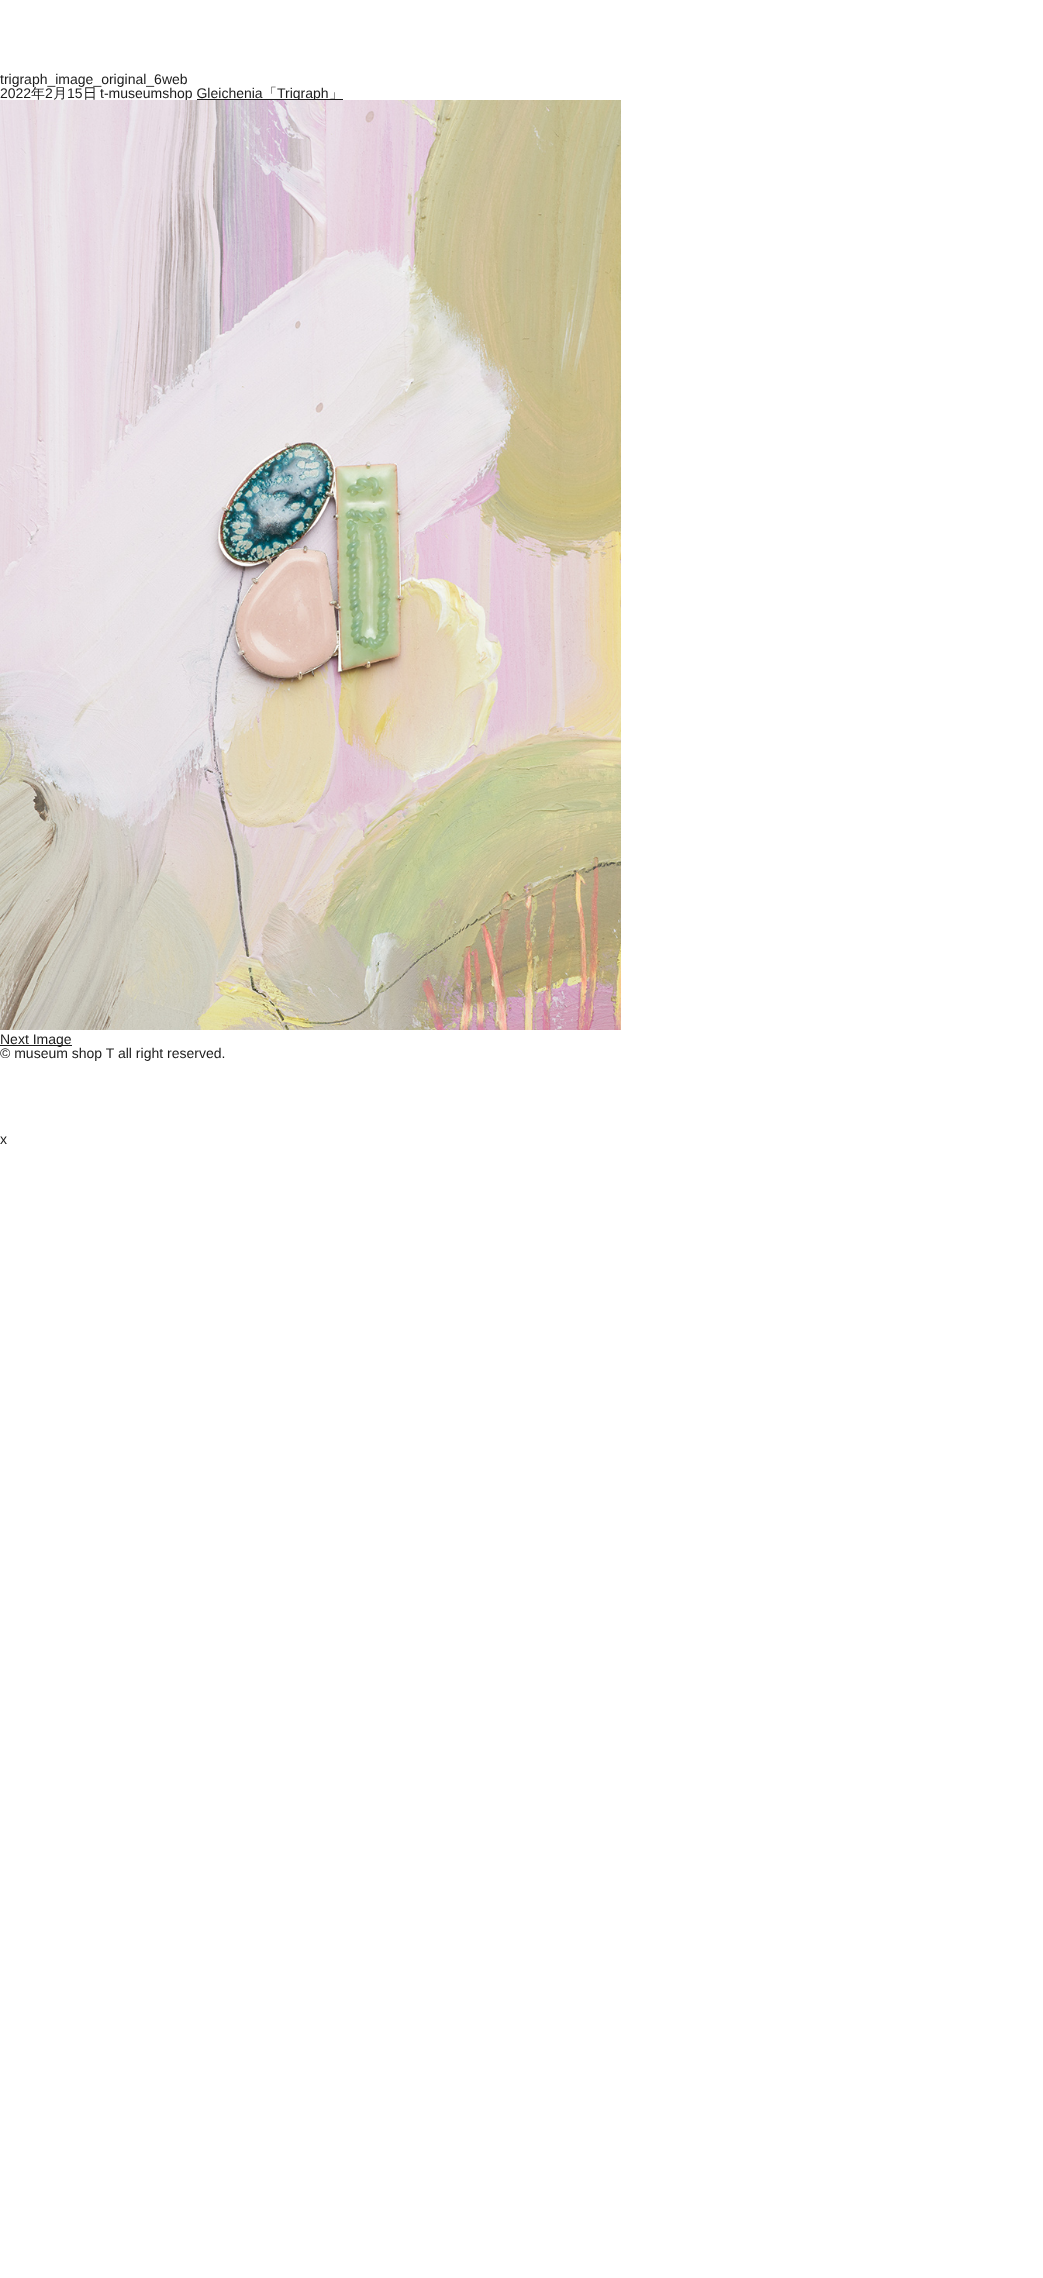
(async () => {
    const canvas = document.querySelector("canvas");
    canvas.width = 1043;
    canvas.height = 2278;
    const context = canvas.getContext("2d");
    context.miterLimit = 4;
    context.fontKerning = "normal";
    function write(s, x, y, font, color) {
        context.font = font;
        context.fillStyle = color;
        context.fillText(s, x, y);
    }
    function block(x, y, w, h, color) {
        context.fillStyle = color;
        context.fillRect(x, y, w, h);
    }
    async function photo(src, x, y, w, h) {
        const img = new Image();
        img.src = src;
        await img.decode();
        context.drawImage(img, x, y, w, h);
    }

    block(0, 0, 1043, 2278, "rgb(255, 255, 255)");
    write("trigraph_image_original_6web", 0, 84, "14px Liberation Sans", "rgb(27, 27, 27)");
    write("2022", 0, 98, "14px Liberation Sans", "rgb(27, 27, 27)");
    write("年", 31, 98, "500 14px WenQuanYi Zen Hei", "rgb(27, 27, 27)");
    write("2", 45, 98, "14px Liberation Sans", "rgb(27, 27, 27)");
    write("月", 53, 98, "500 14px WenQuanYi Zen Hei", "rgb(27, 27, 27)");
    write("15", 67, 98, "14px Liberation Sans", "rgb(27, 27, 27)");
    write("日", 83, 98, "500 14px WenQuanYi Zen Hei", "rgb(27, 27, 27)");
    write("t-museumshop Gleichenia", 100, 98, "14px Liberation Sans", "rgb(27, 27, 27)");
    write("「", 263, 98, "500 14px WenQuanYi Zen Hei", "rgb(27, 27, 27)");
    block(197, 99, 146, 1, "rgb(27, 27, 27)");
    write("Trigraph", 277, 98, "14px Liberation Sans", "rgb(27, 27, 27)");
    write("」", 329, 98, "500 14px WenQuanYi Zen Hei", "rgb(27, 27, 27)");
    await photo("media/1.png", 0, 100, 621, 930);
    block(0, 1045, 72, 1, "rgb(27, 27, 27)");
    write("Next Image", 0, 1044, "14px Liberation Sans", "rgb(27, 27, 27)");
    write("© museum shop T all right reserved.", 0, 1058, "14px Liberation Sans", "rgb(27, 27, 27)");
    write("x", 0, 1144, "14px Liberation Sans", "rgb(27, 27, 27)");
})();
